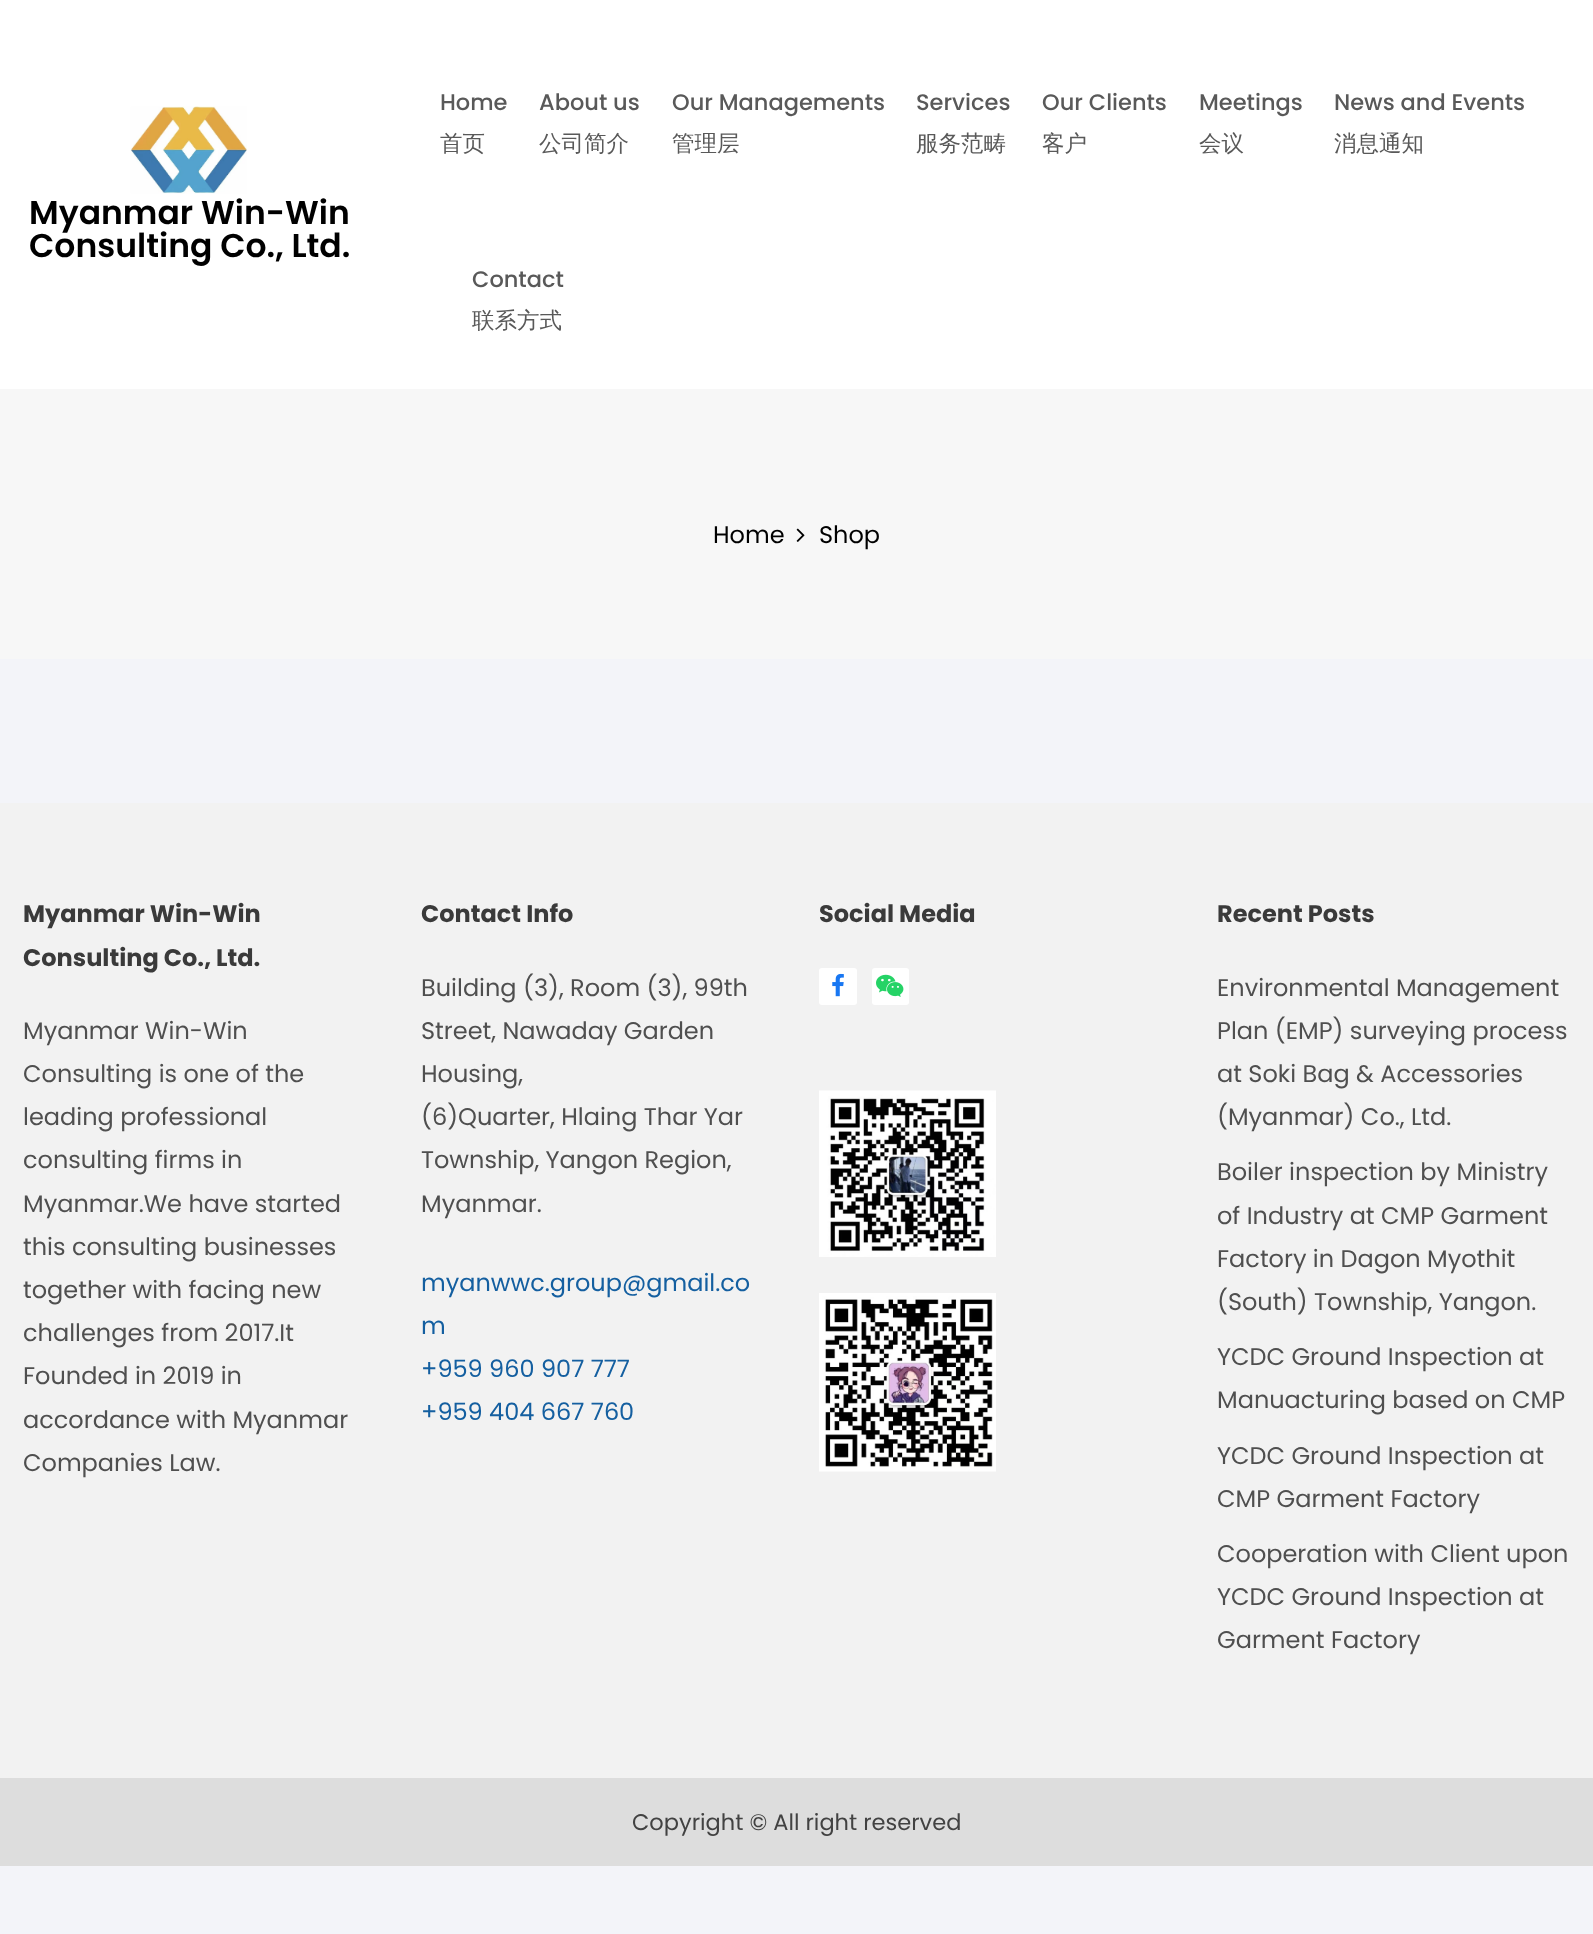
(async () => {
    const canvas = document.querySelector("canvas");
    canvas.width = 1593;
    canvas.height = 1934;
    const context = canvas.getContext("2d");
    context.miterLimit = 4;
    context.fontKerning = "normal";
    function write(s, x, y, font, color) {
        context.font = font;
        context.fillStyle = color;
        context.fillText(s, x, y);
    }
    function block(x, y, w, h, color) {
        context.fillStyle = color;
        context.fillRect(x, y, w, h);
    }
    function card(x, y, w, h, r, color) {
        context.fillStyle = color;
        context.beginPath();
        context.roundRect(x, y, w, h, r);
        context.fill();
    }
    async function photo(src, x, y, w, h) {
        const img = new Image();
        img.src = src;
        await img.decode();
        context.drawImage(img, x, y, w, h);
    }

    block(0, 0, 1593, 1934, "rgb(243, 244, 249)");
    block(0, 0, 1593, 389, "rgb(255, 255, 255)");
    await photo("media/1.png", 130, 106, 117, 88);
    write("Myanmar Win-Win", 29, 224, "600 33px Poppins", "rgb(0, 0, 0)");
    write("Consulting Co., Ltd.", 29, 257, "600 33px Poppins", "rgb(0, 0, 0)");
    write("Home", 440, 110, "500 22.5px Poppins", "rgb(89, 89, 89)");
    write("首页", 440, 151, "500 22.5px WenQuanYi Zen Hei", "rgb(89, 89, 89)");
    write("About us", 539, 110, "500 22.5px Poppins", "rgb(89, 89, 89)");
    write("公司简介", 539, 151, "500 22.5px WenQuanYi Zen Hei", "rgb(89, 89, 89)");
    write("Our Managements", 672, 110, "500 22.5px Poppins", "rgb(89, 89, 89)");
    write("管理层", 672, 151, "500 22.5px WenQuanYi Zen Hei", "rgb(89, 89, 89)");
    write("Services", 916, 110, "500 22.5px Poppins", "rgb(89, 89, 89)");
    write("服务范畴", 916, 151, "500 22.5px WenQuanYi Zen Hei", "rgb(89, 89, 89)");
    write("Our Clients", 1042, 110, "500 22.5px Poppins", "rgb(89, 89, 89)");
    write("客户", 1042, 151, "500 22.5px WenQuanYi Zen Hei", "rgb(89, 89, 89)");
    write("Meetings", 1199, 110, "500 22.5px Poppins", "rgb(89, 89, 89)");
    write("会议", 1199, 151, "500 22.5px WenQuanYi Zen Hei", "rgb(89, 89, 89)");
    write("News and Events", 1334, 110, "500 22.5px Poppins", "rgb(89, 89, 89)");
    write("消息通知", 1334, 151, "500 22.5px WenQuanYi Zen Hei", "rgb(89, 89, 89)");
    write("Contact", 472, 287, "500 22.5px Poppins", "rgb(89, 89, 89)");
    write("联系方式", 472, 328, "500 22.5px WenQuanYi Zen Hei", "rgb(89, 89, 89)");
    block(0, 389, 1593, 270, "rgb(247, 247, 247)");
    write("Home", 713, 543, "24px Poppins", "rgb(0, 0, 0)");
    await photo("media/2.png", 796, 528, 9, 14);
    write("Shop", 819, 543, "24px Poppins", "rgb(0, 0, 0)");
    block(0, 803, 1593, 975, "rgb(242, 242, 242)");
    write("Myanmar Win-Win", 23, 922, "bold 24px Poppins", "rgb(58, 58, 58)");
    write("Consulting Co., Ltd.", 23, 966, "bold 24px Poppins", "rgb(58, 58, 58)");
    write("Myanmar Win-Win", 23, 1039, "24px Poppins", "rgb(79, 79, 79)");
    write("Consulting is one of the", 23, 1082, "24px Poppins", "rgb(79, 79, 79)");
    write("leading professional", 23, 1125, "24px Poppins", "rgb(79, 79, 79)");
    write("consulting firms in", 23, 1168, "24px Poppins", "rgb(79, 79, 79)");
    write("Myanmar.We have started", 23, 1212, "24px Poppins", "rgb(79, 79, 79)");
    write("this consulting businesses", 23, 1255, "24px Poppins", "rgb(79, 79, 79)");
    write("together with facing new", 23, 1298, "24px Poppins", "rgb(79, 79, 79)");
    write("challenges from 2017.It", 23, 1341, "24px Poppins", "rgb(79, 79, 79)");
    write("Founded in 2019 in", 23, 1384, "24px Poppins", "rgb(79, 79, 79)");
    write("accordance with Myanmar", 23, 1428, "24px Poppins", "rgb(79, 79, 79)");
    write("Companies Law.", 23, 1471, "24px Poppins", "rgb(79, 79, 79)");
    write("Contact Info", 421, 922, "bold 24px Poppins", "rgb(58, 58, 58)");
    write("Building (3), Room (3), 99th", 421, 996, "24px Poppins", "rgb(79, 79, 79)");
    write("Street, Nawaday Garden", 421, 1039, "24px Poppins", "rgb(79, 79, 79)");
    write("Housing,", 421, 1082, "24px Poppins", "rgb(79, 79, 79)");
    write("(6)Quarter, Hlaing Thar Yar", 421, 1125, "24px Poppins", "rgb(79, 79, 79)");
    write("Township, Yangon Region,", 421, 1168, "24px Poppins", "rgb(79, 79, 79)");
    write("Myanmar.", 421, 1212, "24px Poppins", "rgb(79, 79, 79)");
    write("myanwwc.group@gmail.co", 421, 1291, "24px Poppins", "rgb(20, 95, 160)");
    write("m", 421, 1334, "24px Poppins", "rgb(20, 95, 160)");
    write("+959 960 907 777", 421, 1377, "24px Poppins", "rgb(20, 95, 160)");
    write("+959 404 667 760", 421, 1420, "24px Poppins", "rgb(20, 95, 160)");
    write("Social Media", 819, 922, "bold 24px Poppins", "rgb(58, 58, 58)");
    card(819, 968, 38, 37, 3, "rgb(255, 255, 255)");
    await photo("media/3.png", 832, 973, 12, 24);
    card(872, 968, 37, 37, 3, "rgb(255, 255, 255)");
    await photo("media/4.png", 876, 974, 28, 23);
    await photo("media/5.png", 819, 1090, 177, 167);
    await photo("media/6.png", 819, 1293, 177, 179);
    write("Recent Posts", 1217, 922, "bold 24px Poppins", "rgb(58, 58, 58)");
    write("Environmental Management", 1217, 996, "24px Poppins", "rgb(79, 79, 79)");
    write("Plan (EMP) surveying process", 1217, 1039, "24px Poppins", "rgb(79, 79, 79)");
    write("at Soki Bag & Accessories", 1217, 1082, "24px Poppins", "rgb(79, 79, 79)");
    write("(Myanmar) Co., Ltd.", 1217, 1125, "24px Poppins", "rgb(79, 79, 79)");
    write("Boiler inspection by Ministry", 1217, 1180, "24px Poppins", "rgb(79, 79, 79)");
    write("of Industry at CMP Garment", 1217, 1224, "24px Poppins", "rgb(79, 79, 79)");
    write("Factory in Dagon Myothit", 1217, 1267, "24px Poppins", "rgb(79, 79, 79)");
    write("(South) Township, Yangon.", 1217, 1310, "24px Poppins", "rgb(79, 79, 79)");
    write("YCDC Ground Inspection at", 1217, 1365, "24px Poppins", "rgb(79, 79, 79)");
    write("Manuacturing based on CMP", 1217, 1408, "24px Poppins", "rgb(79, 79, 79)");
    write("YCDC Ground Inspection at", 1217, 1464, "24px Poppins", "rgb(79, 79, 79)");
    write("CMP Garment Factory", 1217, 1507, "24px Poppins", "rgb(79, 79, 79)");
    write("Cooperation with Client upon", 1217, 1562, "24px Poppins", "rgb(79, 79, 79)");
    write("YCDC Ground Inspection at", 1217, 1605, "24px Poppins", "rgb(79, 79, 79)");
    write("Garment Factory", 1217, 1648, "24px Poppins", "rgb(79, 79, 79)");
    block(0, 1778, 1593, 88, "rgb(221, 221, 221)");
    write("Copyright © All right reserved", 632, 1830, "22.5px Poppins", "rgb(66, 66, 66)");
})();
